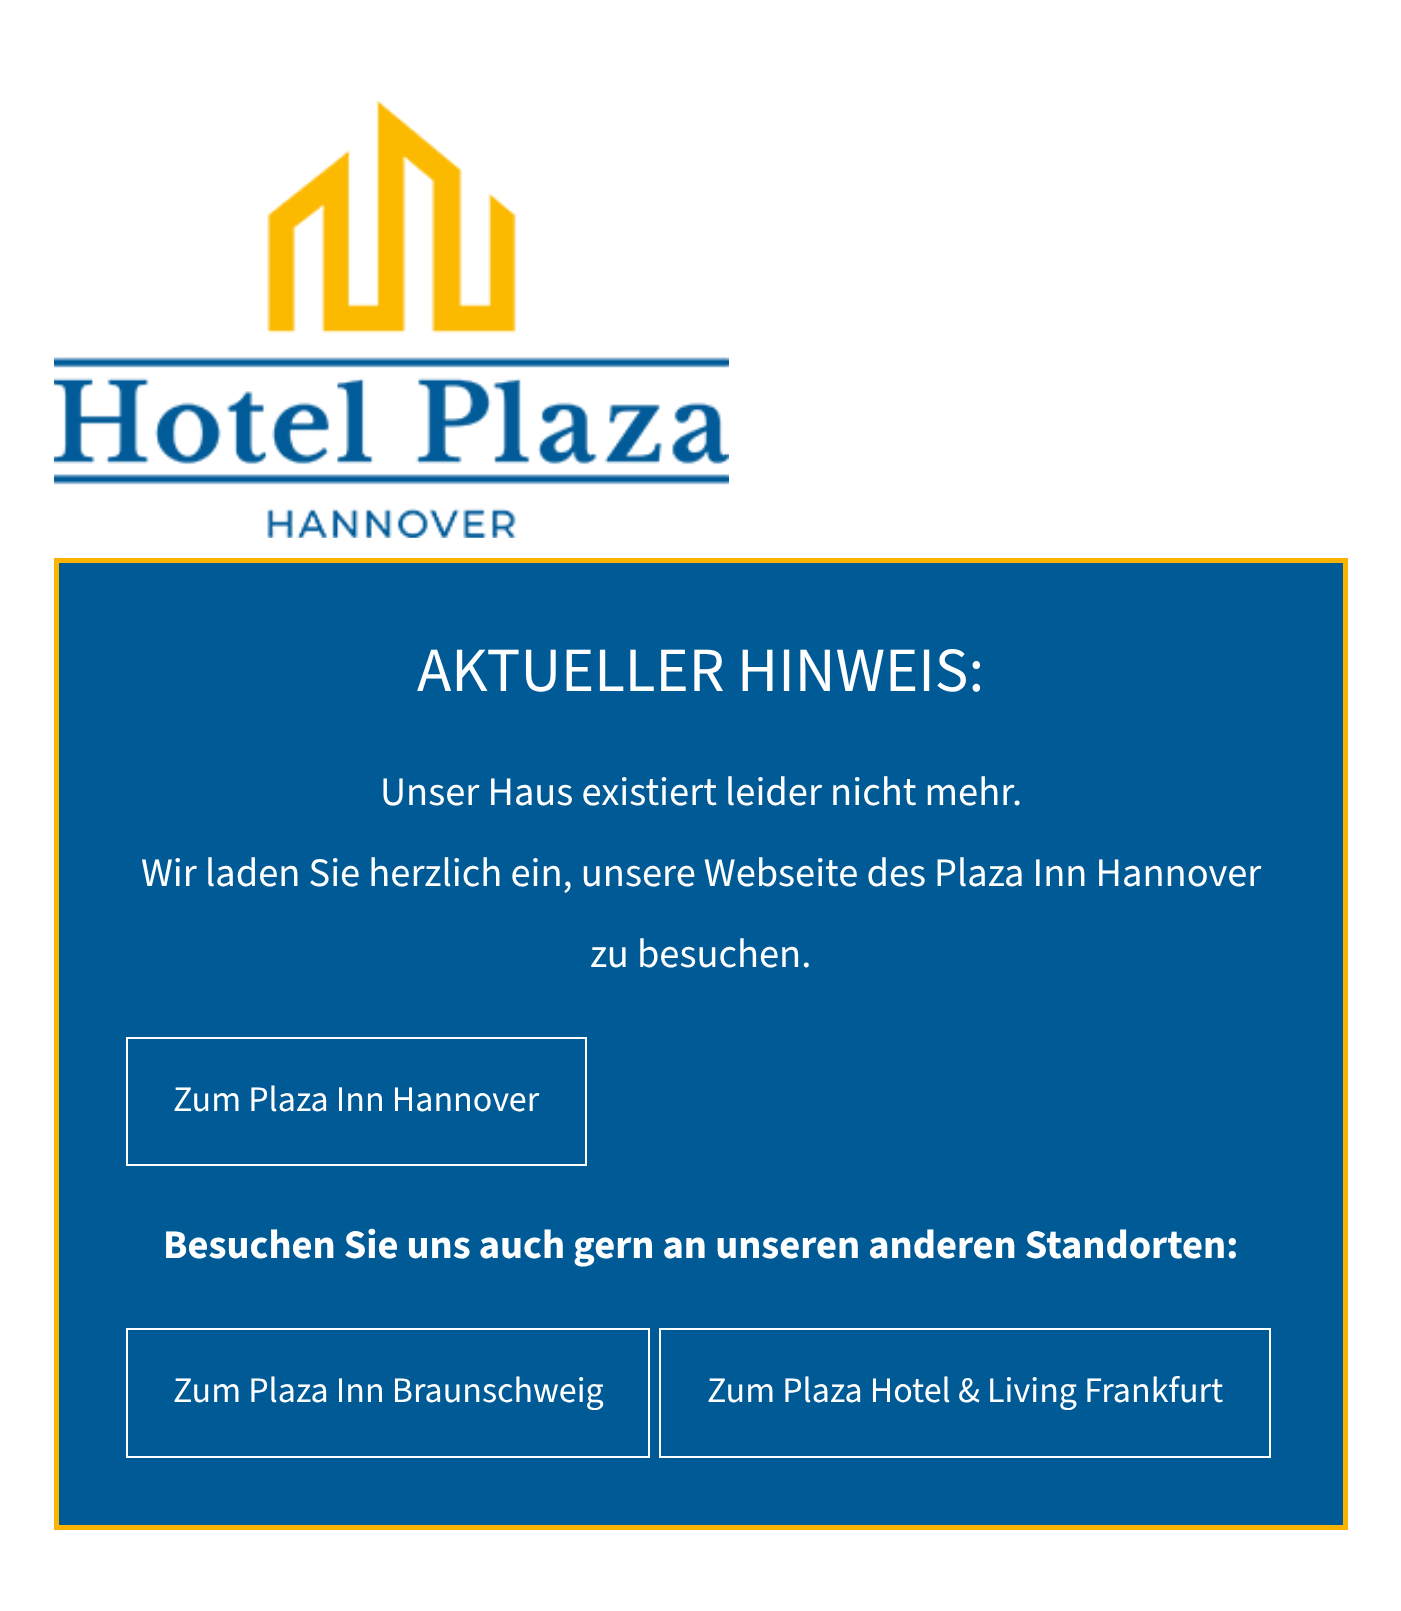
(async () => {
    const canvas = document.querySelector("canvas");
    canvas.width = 1401;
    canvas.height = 1611;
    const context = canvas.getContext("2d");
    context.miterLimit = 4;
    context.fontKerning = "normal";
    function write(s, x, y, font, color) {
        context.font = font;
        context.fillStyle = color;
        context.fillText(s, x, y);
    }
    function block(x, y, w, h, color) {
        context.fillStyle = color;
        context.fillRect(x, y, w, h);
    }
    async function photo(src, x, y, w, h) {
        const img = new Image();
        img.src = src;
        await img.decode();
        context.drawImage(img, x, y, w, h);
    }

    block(0, 0, 1401, 1611, "rgb(255, 255, 255)");
    await photo("media/1.png", 54, 101, 675, 437);
    context.fillStyle = "rgb(0, 90, 150)";
    context.beginPath();
    context.rect(56.5, 560.5, 1289, 967);
    context.fill();
    context.strokeStyle = "rgb(250, 179, 0)";
    context.lineWidth = 5;
    context.stroke();
    write("AKTUELLER HINWEIS:", 417, 691, "63px 'Source Sans 3'", "rgb(255, 255, 255)");
    write("Unser Haus existiert leider nicht mehr.", 380, 805, "40.5px 'Source Sans 3'", "rgb(255, 255, 255)");
    write("Wir laden Sie herzlich ein, unsere Webseite des Plaza Inn Hannover", 141, 886, "40.5px 'Source Sans 3'", "rgb(255, 255, 255)");
    write("zu besuchen.", 590, 967, "40.5px 'Source Sans 3'", "rgb(255, 255, 255)");
    context.strokeStyle = "rgb(255, 255, 255)";
    context.lineWidth = 2;
    context.strokeRect(127, 1038, 459, 127);
    write("Zum Plaza Inn Hannover", 173, 1111, "36px 'Source Sans 3'", "rgb(255, 255, 255)");
    write("Besuchen Sie uns auch gern an unseren anderen Standorten:", 163, 1258, "bold 40.5px 'Source Sans 3'", "rgb(255, 255, 255)");
    context.strokeRect(127, 1329, 522, 128);
    write("Zum Plaza Inn Braunschweig", 173, 1402, "36px 'Source Sans 3'", "rgb(255, 255, 255)");
    context.strokeRect(660, 1329, 610, 128);
    write("Zum Plaza Hotel & Living Frankfurt", 707, 1402, "36px 'Source Sans 3'", "rgb(255, 255, 255)");
})();
